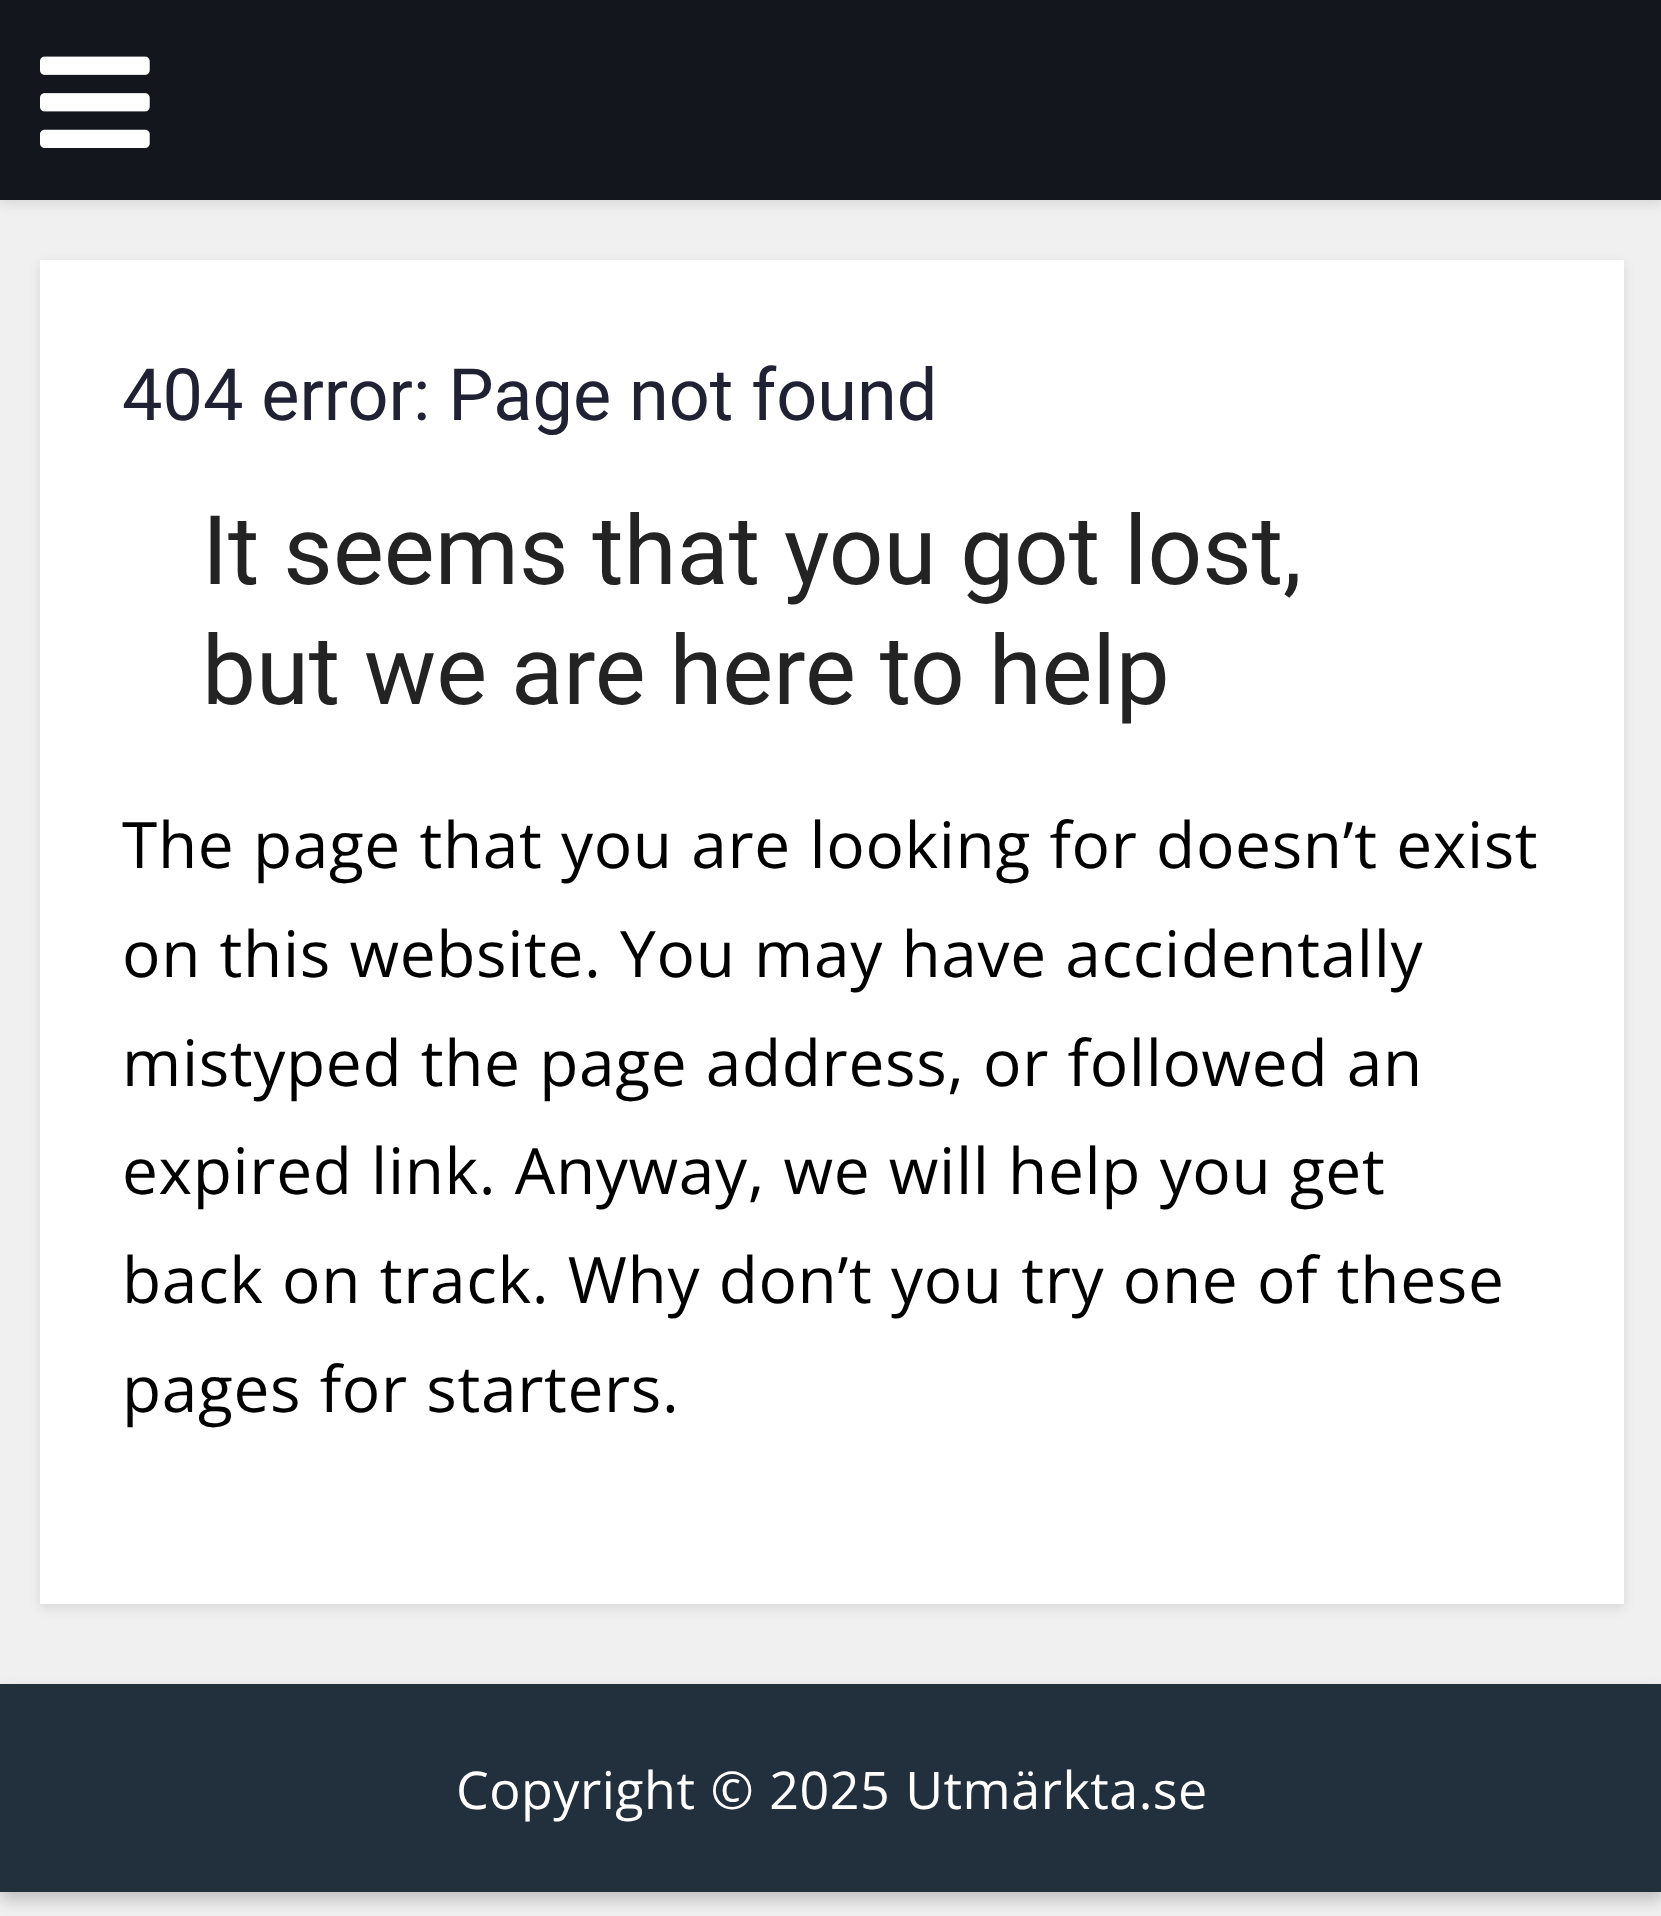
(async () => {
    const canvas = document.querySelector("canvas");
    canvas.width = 1661;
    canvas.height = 1916;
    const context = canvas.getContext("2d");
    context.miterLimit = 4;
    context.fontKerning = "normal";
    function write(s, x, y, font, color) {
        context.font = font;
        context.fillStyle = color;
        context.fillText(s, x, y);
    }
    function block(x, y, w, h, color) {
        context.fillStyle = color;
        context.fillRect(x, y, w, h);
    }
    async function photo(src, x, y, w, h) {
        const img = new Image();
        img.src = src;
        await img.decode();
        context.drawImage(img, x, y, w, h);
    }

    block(0, 0, 1661, 1916, "rgb(240, 240, 240)");
    context.fillStyle = "rgba(0, 0, 0, 0.1)";
    context.filter = "blur(6px)";
    context.beginPath();
    context.rect(0, 4, 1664, 200);
    context.fill();
    context.filter = "none";
    block(0, 0, 1661, 200, "rgb(20, 22, 30)");
    await photo("media/1.png", 40, 56, 110, 92);
    context.fillStyle = "rgba(0, 0, 0, 0.1)";
    context.filter = "blur(6px)";
    context.beginPath();
    context.rect(40, 264, 1584, 1344);
    context.fill();
    context.filter = "none";
    block(40, 260, 1584, 1344, "rgb(255, 255, 255)");
    write("404 error: Page not found", 122, 420, "72px Roboto", "rgb(32, 33, 51)");
    write("It seems that you got lost,", 202, 584, "96px Roboto", "rgb(35, 35, 35)");
    write("but we are here to help", 202, 704, "96px Roboto", "rgb(35, 35, 35)");
    context.letterSpacing = "0.65px";
    context.wordSpacing = "1.25px";
    write("The page that you are looking for doesn’t exist", 122, 868, "64px Open Sans", "rgb(0, 0, 0)");
    write("on this website. You may have accidentally", 122, 977, "64px Open Sans", "rgb(0, 0, 0)");
    write("mistyped the page address, or followed an", 122, 1086, "64px Open Sans", "rgb(0, 0, 0)");
    write("expired link. Anyway, we will help you get", 122, 1194, "64px Open Sans", "rgb(0, 0, 0)");
    write("back on track. Why don’t you try one of these", 122, 1303, "64px Open Sans", "rgb(0, 0, 0)");
    write("pages for starters.", 122, 1412, "64px Open Sans", "rgb(0, 0, 0)");
    context.fillStyle = "rgba(0, 0, 0, 0.2)";
    context.filter = "blur(8px)";
    context.beginPath();
    context.rect(0, 1692, 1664, 208);
    context.fill();
    context.filter = "none";
    block(0, 1684, 1661, 208, "rgb(34, 47, 61)");
    context.letterSpacing = "0.5px";
    context.wordSpacing = "1px";
    write("Copyright © 2025 Utmärkta.se", 456, 1809, "52px Open Sans", "rgb(255, 255, 255)");
})();
